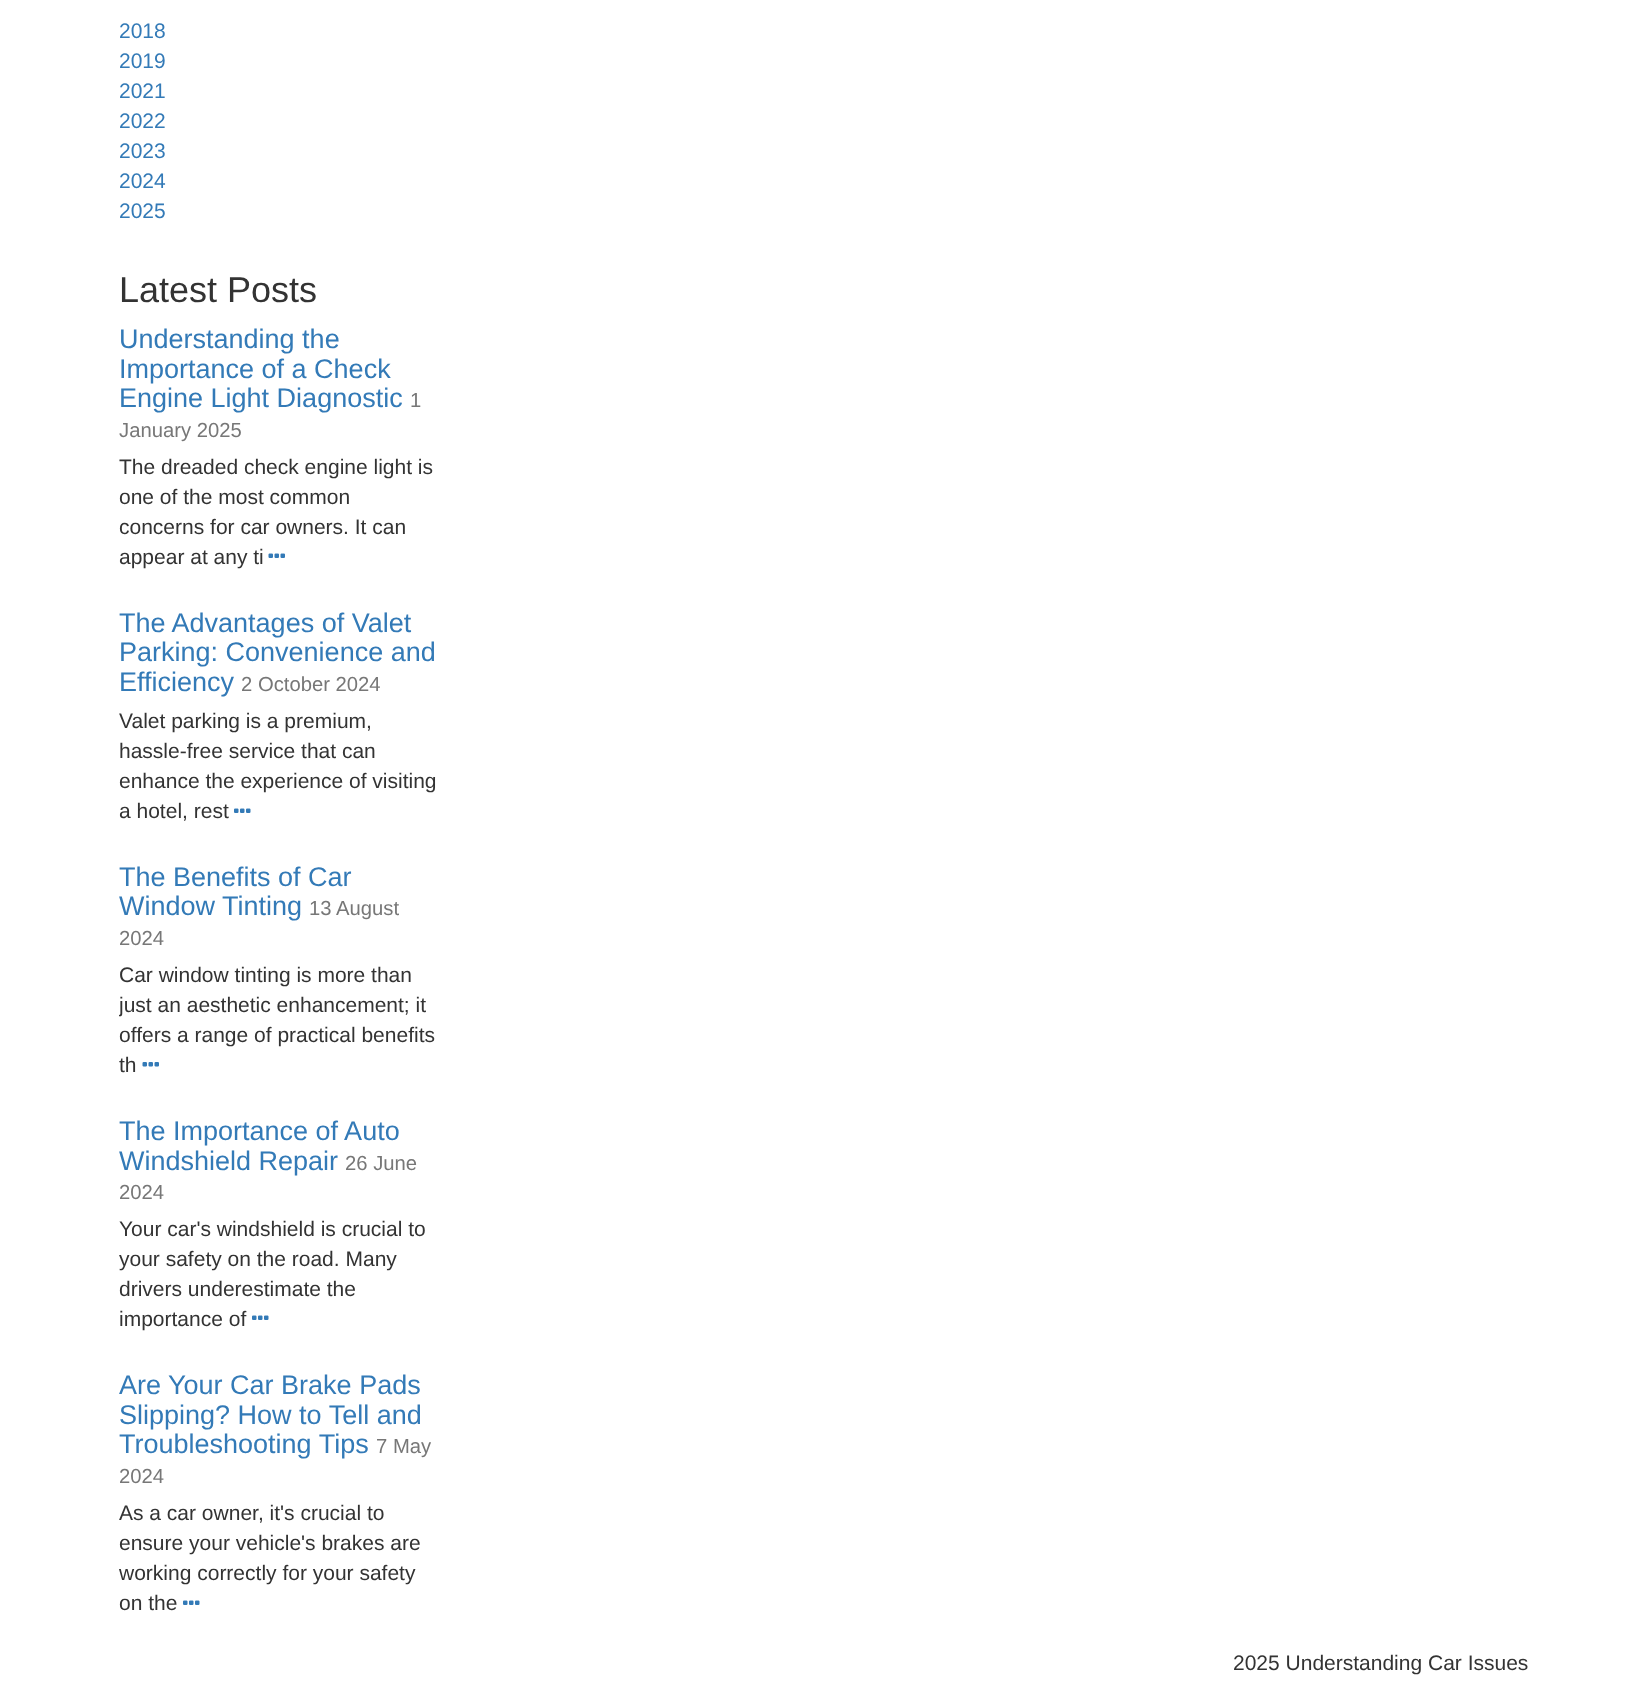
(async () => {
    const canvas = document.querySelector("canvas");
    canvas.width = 1647;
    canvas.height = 1693;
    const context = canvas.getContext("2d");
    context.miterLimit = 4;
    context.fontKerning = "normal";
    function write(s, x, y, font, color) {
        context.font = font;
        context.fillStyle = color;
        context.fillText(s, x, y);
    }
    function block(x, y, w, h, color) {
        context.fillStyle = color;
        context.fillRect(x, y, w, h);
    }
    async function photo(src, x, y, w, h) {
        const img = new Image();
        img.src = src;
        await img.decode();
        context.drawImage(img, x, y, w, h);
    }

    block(0, 0, 1647, 1693, "rgb(255, 255, 255)");
    write("2018", 119, 38, "21px Liberation Sans", "rgb(51, 122, 183)");
    write("2019", 119, 68, "21px Liberation Sans", "rgb(51, 122, 183)");
    write("2021", 119, 98, "21px Liberation Sans", "rgb(51, 122, 183)");
    write("2022", 119, 128, "21px Liberation Sans", "rgb(51, 122, 183)");
    write("2023", 119, 158, "21px Liberation Sans", "rgb(51, 122, 183)");
    write("2024", 119, 188, "21px Liberation Sans", "rgb(51, 122, 183)");
    write("2025", 119, 218, "21px Liberation Sans", "rgb(51, 122, 183)");
    write("Latest Posts", 119, 302, "36px Liberation Sans", "rgb(51, 51, 51)");
    write("Understanding the", 119, 348, "27px Liberation Sans", "rgb(51, 122, 183)");
    write("Importance of a Check", 119, 378, "27px Liberation Sans", "rgb(51, 122, 183)");
    write("Engine Light Diagnostic", 119, 407, "27px Liberation Sans", "rgb(51, 122, 183)");
    write("1", 410, 407, "20.25px Liberation Sans", "rgb(119, 119, 119)");
    write("January 2025", 119, 437, "20.25px Liberation Sans", "rgb(119, 119, 119)");
    write("The dreaded check engine light is", 119, 474, "21px Liberation Sans", "rgb(51, 51, 51)");
    write("one of the most common", 119, 504, "21px Liberation Sans", "rgb(51, 51, 51)");
    write("concerns for car owners. It can", 119, 534, "21px Liberation Sans", "rgb(51, 51, 51)");
    write("appear at any ti", 119, 564, "21px Liberation Sans", "rgb(51, 51, 51)");
    await photo("media/1.png", 268, 553, 17, 5);
    write("The Advantages of Valet", 119, 632, "27px Liberation Sans", "rgb(51, 122, 183)");
    write("Parking: Convenience and", 119, 661, "27px Liberation Sans", "rgb(51, 122, 183)");
    write("Efficiency", 119, 691, "27px Liberation Sans", "rgb(51, 122, 183)");
    write("2 October 2024", 241, 691, "20.25px Liberation Sans", "rgb(119, 119, 119)");
    write("Valet parking is a premium,", 119, 728, "21px Liberation Sans", "rgb(51, 51, 51)");
    write("hassle-free service that can", 119, 758, "21px Liberation Sans", "rgb(51, 51, 51)");
    write("enhance the experience of visiting", 119, 788, "21px Liberation Sans", "rgb(51, 51, 51)");
    write("a hotel, rest", 119, 818, "21px Liberation Sans", "rgb(51, 51, 51)");
    await photo("media/2.png", 234, 808, 17, 5);
    write("The Benefits of Car", 119, 886, "27px Liberation Sans", "rgb(51, 122, 183)");
    write("Window Tinting", 119, 915, "27px Liberation Sans", "rgb(51, 122, 183)");
    write("13 August", 309, 915, "20.25px Liberation Sans", "rgb(119, 119, 119)");
    write("2024", 119, 945, "20.25px Liberation Sans", "rgb(119, 119, 119)");
    write("Car window tinting is more than", 119, 982, "21px Liberation Sans", "rgb(51, 51, 51)");
    context.save();
    context.beginPath();
    context.rect(119, 864, 319, 231);
    context.clip();
    write("just an aesthetic enhancement; it", 119, 1012, "21px Liberation Sans", "rgb(51, 51, 51)");
    context.restore();
    write("offers a range of practical benefits", 119, 1042, "21px Liberation Sans", "rgb(51, 51, 51)");
    write("th", 119, 1072, "21px Liberation Sans", "rgb(51, 51, 51)");
    await photo("media/3.png", 142, 1062, 17, 5);
    write("The Importance of Auto", 119, 1140, "27px Liberation Sans", "rgb(51, 122, 183)");
    write("Windshield Repair", 119, 1170, "27px Liberation Sans", "rgb(51, 122, 183)");
    write("26 June", 345, 1170, "20.25px Liberation Sans", "rgb(119, 119, 119)");
    write("2024", 119, 1199, "20.25px Liberation Sans", "rgb(119, 119, 119)");
    write("Your car's windshield is crucial to", 119, 1236, "21px Liberation Sans", "rgb(51, 51, 51)");
    write("your safety on the road. Many", 119, 1266, "21px Liberation Sans", "rgb(51, 51, 51)");
    write("drivers underestimate the", 119, 1296, "21px Liberation Sans", "rgb(51, 51, 51)");
    write("importance of", 119, 1326, "21px Liberation Sans", "rgb(51, 51, 51)");
    await photo("media/2.png", 252, 1315, 17, 5);
    write("Are Your Car Brake Pads", 119, 1394, "27px Liberation Sans", "rgb(51, 122, 183)");
    write("Slipping? How to Tell and", 119, 1424, "27px Liberation Sans", "rgb(51, 122, 183)");
    write("Troubleshooting Tips", 119, 1453, "27px Liberation Sans", "rgb(51, 122, 183)");
    write("7 May", 376, 1453, "20.25px Liberation Sans", "rgb(119, 119, 119)");
    write("2024", 119, 1483, "20.25px Liberation Sans", "rgb(119, 119, 119)");
    write("As a car owner, it's crucial to", 119, 1520, "21px Liberation Sans", "rgb(51, 51, 51)");
    write("ensure your vehicle's brakes are", 119, 1550, "21px Liberation Sans", "rgb(51, 51, 51)");
    write("working correctly for your safety", 119, 1580, "21px Liberation Sans", "rgb(51, 51, 51)");
    write("on the", 119, 1610, "21px Liberation Sans", "rgb(51, 51, 51)");
    await photo("media/2.png", 183, 1600, 17, 5);
    write("2025 Understanding Car Issues", 1233, 1670, "21px Liberation Sans", "rgb(51, 51, 51)");
})();
